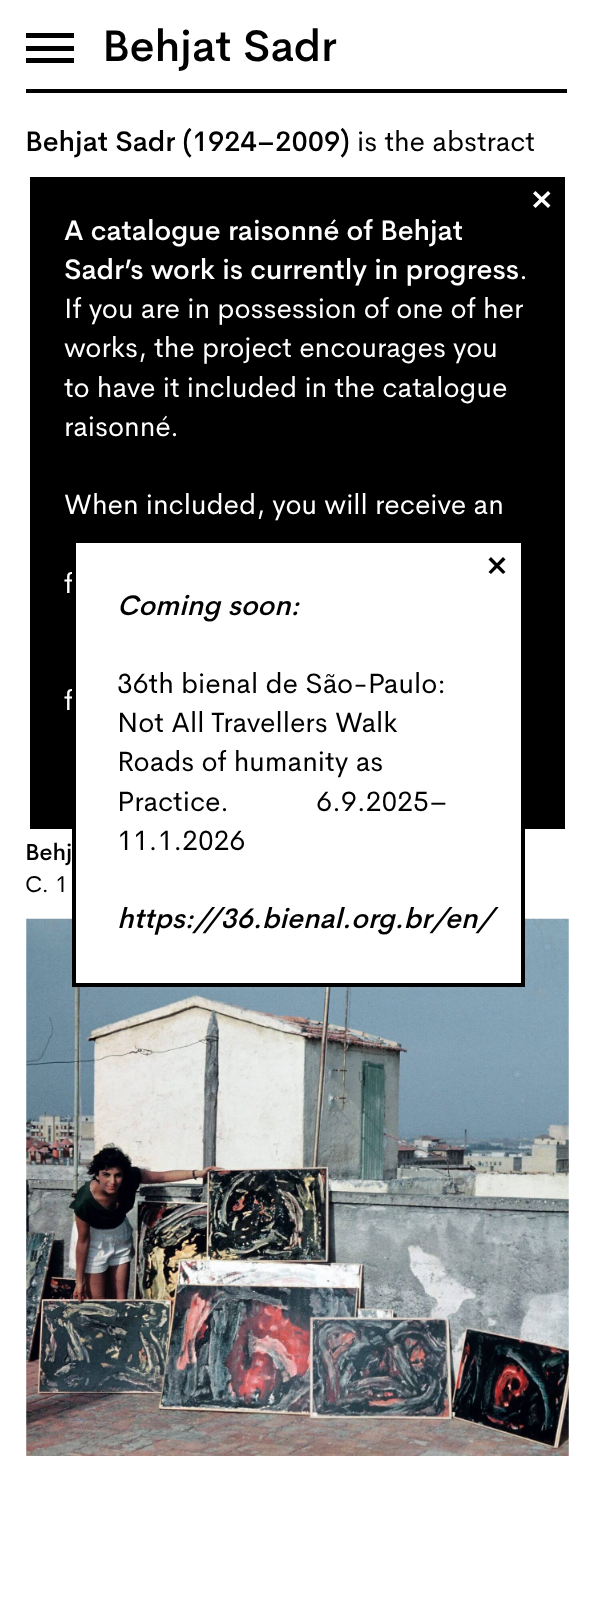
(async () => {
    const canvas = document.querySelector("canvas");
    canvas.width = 593;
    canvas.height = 1612;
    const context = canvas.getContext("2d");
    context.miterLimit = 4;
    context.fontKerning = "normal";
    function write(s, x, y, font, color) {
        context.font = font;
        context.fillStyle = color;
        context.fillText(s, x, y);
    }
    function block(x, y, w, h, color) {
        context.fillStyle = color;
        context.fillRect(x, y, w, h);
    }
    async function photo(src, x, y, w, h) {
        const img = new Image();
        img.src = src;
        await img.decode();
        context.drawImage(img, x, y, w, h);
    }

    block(0, 0, 593, 1612, "rgb(255, 255, 255)");
    block(26, 33, 48, 5, "rgb(0, 0, 0)");
    block(26, 46, 48, 5, "rgb(0, 0, 0)");
    block(26, 58, 48, 5, "rgb(0, 0, 0)");
    write("Behjat Sadr", 102, 61, "500 43.75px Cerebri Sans", "rgb(0, 0, 0)");
    block(26, 89, 541, 4, "rgb(0, 0, 0)");
    write("Behjat Sadr (1924–2009)", 25, 151, "500 28px Cerebri Sans", "rgb(0, 0, 0)");
    write("is the abstract", 357, 151, "28px Cerebri Sans", "rgb(0, 0, 0)");
    write("Behj", 25, 860, "500 23px Cerebri Sans", "rgb(0, 0, 0)");
    write("C. 1", 25, 892, "23px Cerebri Sans", "rgb(0, 0, 0)");
    block(30, 177, 535, 652, "rgb(0, 0, 0)");
    context.fillStyle = "rgb(255, 255, 255)";
    context.beginPath();
    context.moveTo(535.5, 191);
    context.lineTo(550.5, 205.5);
    context.lineTo(548, 208);
    context.lineTo(533, 193.5);
    context.closePath();
    context.fill();
    context.beginPath();
    context.moveTo(533, 205.5);
    context.lineTo(548, 191);
    context.lineTo(550.5, 193.5);
    context.lineTo(535.5, 208);
    context.closePath();
    context.fill();
    write("A catalogue raisonné of Behjat", 64, 240, "500 28px Cerebri Sans", "rgb(255, 255, 255)");
    write("Sadr’s work is currently in progress", 64, 279, "500 28px Cerebri Sans", "rgb(255, 255, 255)");
    write(".", 519, 279, "28px Cerebri Sans", "rgb(255, 255, 255)");
    write("If you are in possession of one of her", 64, 318, "28px Cerebri Sans", "rgb(255, 255, 255)");
    write("works, the project encourages you", 64, 357, "28px Cerebri Sans", "rgb(255, 255, 255)");
    write("to have it included in the catalogue", 64, 397, "28px Cerebri Sans", "rgb(255, 255, 255)");
    write("raisonné.", 64, 436, "28px Cerebri Sans", "rgb(255, 255, 255)");
    write("When included, you will receive an", 64, 514, "28px Cerebri Sans", "rgb(255, 255, 255)");
    write("f", 64, 593, "28px Cerebri Sans", "rgb(255, 255, 255)");
    write("f", 64, 710, "28px Cerebri Sans", "rgb(255, 255, 255)");
    await photo("media/1.png", 26, 918, 543, 538);
    context.beginPath();
    context.rect(74, 541, 449, 444);
    context.fill();
    context.strokeStyle = "rgb(0, 0, 0)";
    context.lineWidth = 4;
    context.stroke();
    context.fillStyle = "rgb(0, 0, 0)";
    context.beginPath();
    context.moveTo(491, 557);
    context.lineTo(505.5, 572);
    context.lineTo(503, 574);
    context.lineTo(488.5, 559.5);
    context.closePath();
    context.fill();
    context.beginPath();
    context.moveTo(488.5, 572);
    context.lineTo(503, 557);
    context.lineTo(505.5, 559.5);
    context.lineTo(491, 574);
    context.closePath();
    context.fill();
    write("Coming soon:", 117, 615, "italic 500 28px Cerebri Sans", "rgb(0, 0, 0)");
    write("36th bienal de São-Paulo:", 117, 693, "28px Cerebri Sans", "rgb(0, 0, 0)");
    write("Not All Travellers Walk", 117, 732, "28px Cerebri Sans", "rgb(0, 0, 0)");
    write("Roads of humanity as", 117, 771, "28px Cerebri Sans", "rgb(0, 0, 0)");
    write("Practice.            6.9.2025–", 117, 811, "28px Cerebri Sans", "rgb(0, 0, 0)");
    write("11.1.2026", 117, 850, "28px Cerebri Sans", "rgb(0, 0, 0)");
    write("https://36.bienal.org.br/en/", 117, 928, "italic 500 28px Cerebri Sans", "rgb(0, 0, 0)");
})();
